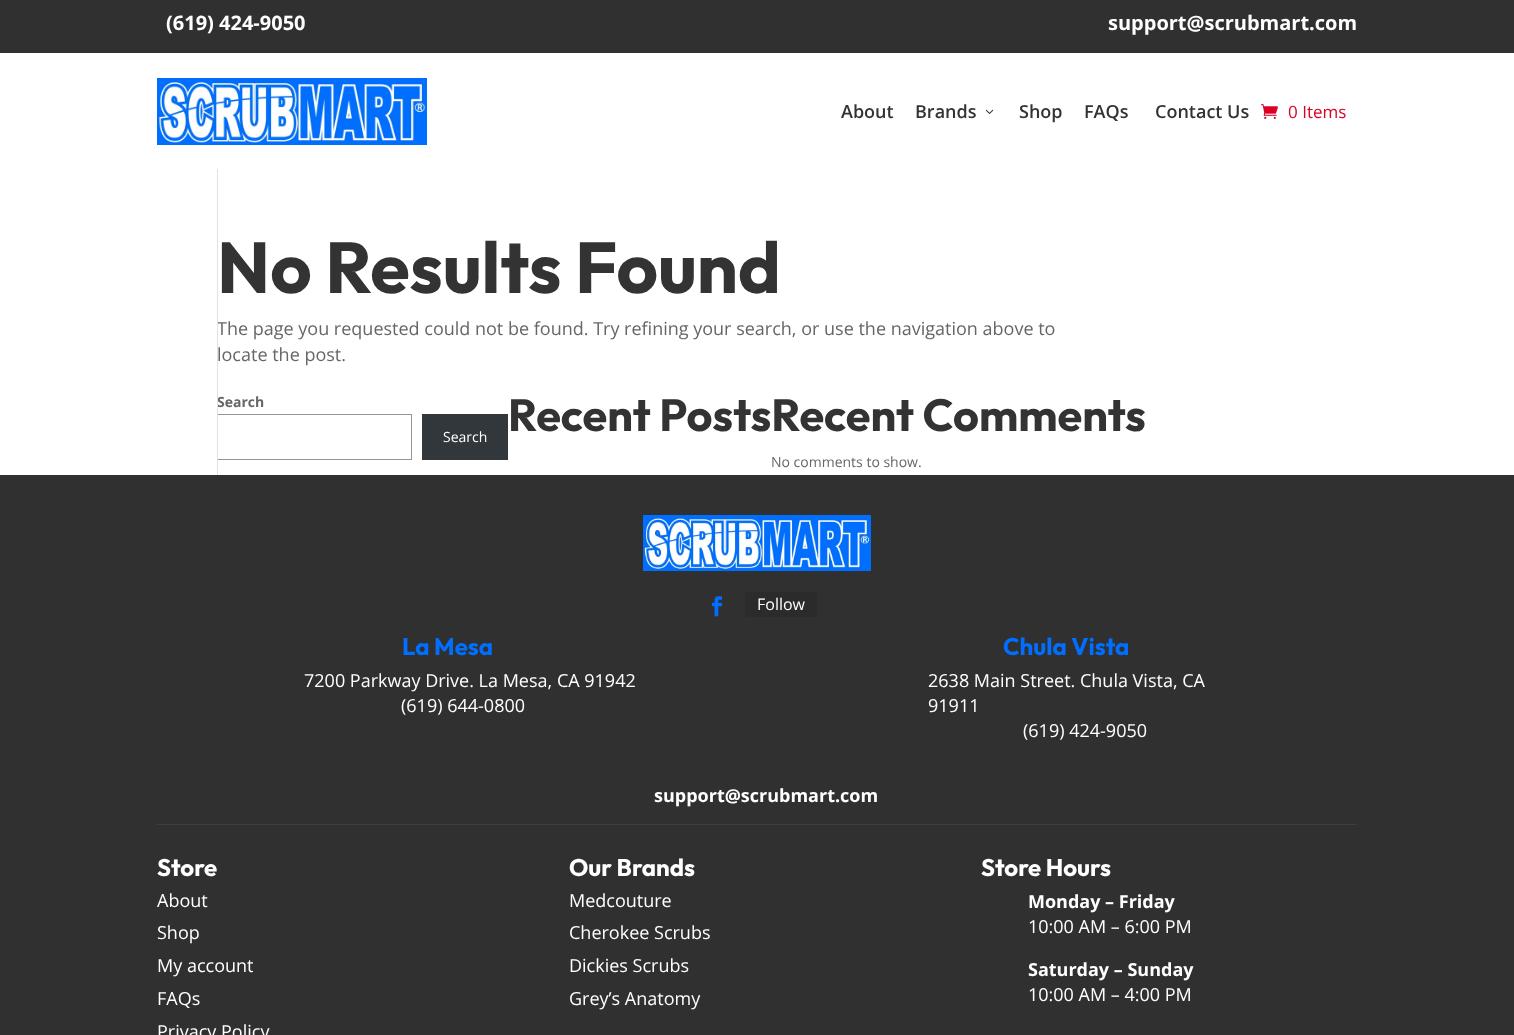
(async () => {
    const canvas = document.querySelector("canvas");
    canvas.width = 1514;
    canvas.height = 1035;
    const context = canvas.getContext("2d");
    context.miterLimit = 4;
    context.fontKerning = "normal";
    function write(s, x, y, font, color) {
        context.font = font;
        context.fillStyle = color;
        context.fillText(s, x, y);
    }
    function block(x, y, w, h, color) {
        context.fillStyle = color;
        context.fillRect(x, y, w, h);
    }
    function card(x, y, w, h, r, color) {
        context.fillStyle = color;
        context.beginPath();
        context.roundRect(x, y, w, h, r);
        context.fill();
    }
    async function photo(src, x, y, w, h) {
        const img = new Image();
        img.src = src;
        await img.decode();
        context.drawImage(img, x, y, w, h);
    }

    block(0, 0, 1514, 1035, "rgb(255, 255, 255)");
    block(0, 0, 1514, 53, "rgb(48, 48, 48)");
    write("(619) 424-9050", 166, 30, "bold 20px Open Sans", "rgb(255, 255, 255)");
    write("support@scrubmart.com", 1108, 30, "bold 20px Open Sans", "rgb(255, 255, 255)");
    await photo("media/1.png", 157, 78, 270, 67);
    write("About", 841, 118, "600 18px Open Sans", "rgb(51, 51, 51)");
    write("Brands", 915, 118, "600 18px Open Sans", "rgb(51, 51, 51)");
    await photo("media/2.png", 985, 109, 9, 5);
    write("Shop", 1019, 118, "600 18px Open Sans", "rgb(51, 51, 51)");
    write("FAQs", 1084, 118, "600 18px Open Sans", "rgb(51, 51, 51)");
    write("Contact Us", 1155, 118, "600 18px Open Sans", "rgb(51, 51, 51)");
    await photo("media/3.png", 1261, 104, 17, 15);
    write("0 Items", 1288, 118, "17px Open Sans", "rgb(219, 0, 36)");
    write("The page you requested could not be found. Try refining your search, or use the navigation above to", 217, 335, "18px Open Sans", "rgb(102, 102, 102)");
    write("Search", 217, 407, "bold 14px Open Sans", "rgb(102, 102, 102)");
    context.strokeStyle = "rgb(148, 148, 148)";
    context.strokeRect(217.5, 414.5, 194, 45);
    block(217, 169, 1, 306, "rgb(226, 226, 226)");
    write("No Results Found", 217, 293, "bold 72px Outfit", "rgb(51, 51, 51)");
    write("locate the post.", 217, 361, "18px Open Sans", "rgb(102, 102, 102)");
    block(422, 414, 86, 46, "rgb(50, 55, 60)");
    write("Search", 443, 442, "14px Open Sans", "rgb(255, 255, 255)");
    write("Recent PostsRecent Comments", 508, 431, "bold 45px Outfit", "rgb(51, 51, 51)");
    write("No comments to show.", 771, 467, "14px Open Sans", "rgb(102, 102, 102)");
    block(0, 475, 1514, 560, "rgb(48, 48, 48)");
    await photo("media/4.png", 643, 515, 228, 56);
    await photo("media/5.png", 712, 596, 10, 21);
    card(745, 592, 72, 25, 3, "rgb(43, 43, 43)");
    write("Follow", 757, 610, "16px Open Sans", "rgb(255, 255, 255)");
    write("La Mesa", 402, 655, "bold 24px Outfit", "rgb(0, 110, 254)");
    write("7200 Parkway Drive. La Mesa, CA 91942", 304, 687, "18px Open Sans", "rgb(255, 255, 255)");
    write("(619) 644-0800", 401, 712, "18px Open Sans", "rgb(255, 255, 255)");
    write("Chula Vista", 1003, 655, "bold 24px Outfit", "rgb(0, 110, 254)");
    write("2638 Main Street. Chula Vista, CA", 928, 687, "18px Open Sans", "rgb(255, 255, 255)");
    write("91911", 928, 712, "18px Open Sans", "rgb(255, 255, 255)");
    write("(619) 424-9050", 1023, 737, "18px Open Sans", "rgb(255, 255, 255)");
    write("support@scrubmart.com", 654, 802, "bold 18px Open Sans", "rgb(255, 255, 255)");
    block(157, 824, 1200, 1, "rgb(62, 62, 62)");
    write("Store", 157, 876, "bold 24px Outfit", "rgb(255, 255, 255)");
    write("About", 157, 907, "18px Open Sans", "rgb(255, 255, 255)");
    write("Shop", 157, 939, "18px Open Sans", "rgb(255, 255, 255)");
    write("My account", 157, 972, "18px Open Sans", "rgb(255, 255, 255)");
    write("FAQs", 157, 1005, "18px Open Sans", "rgb(255, 255, 255)");
    write("Privacy Policy", 157, 1038, "18px Open Sans", "rgb(255, 255, 255)");
    write("Our Brands", 569, 876, "bold 24px Outfit", "rgb(255, 255, 255)");
    write("Medcouture", 569, 907, "18px Open Sans", "rgb(255, 255, 255)");
    write("Cherokee Scrubs", 569, 939, "18px Open Sans", "rgb(255, 255, 255)");
    write("Dickies Scrubs", 569, 972, "18px Open Sans", "rgb(255, 255, 255)");
    write("Grey’s Anatomy", 569, 1005, "18px Open Sans", "rgb(255, 255, 255)");
    write("Store Hours", 981, 876, "bold 24px Outfit", "rgb(255, 255, 255)");
    write("Monday – Friday", 1028, 908, "bold 18px Open Sans", "rgb(255, 255, 255)");
    write("10:00 AM – 6:00 PM", 1028, 933, "18px Open Sans", "rgb(255, 255, 255)");
    write("Saturday – Sunday", 1028, 976, "bold 18px Open Sans", "rgb(255, 255, 255)");
    write("10:00 AM – 4:00 PM", 1028, 1001, "18px Open Sans", "rgb(255, 255, 255)");
})();
